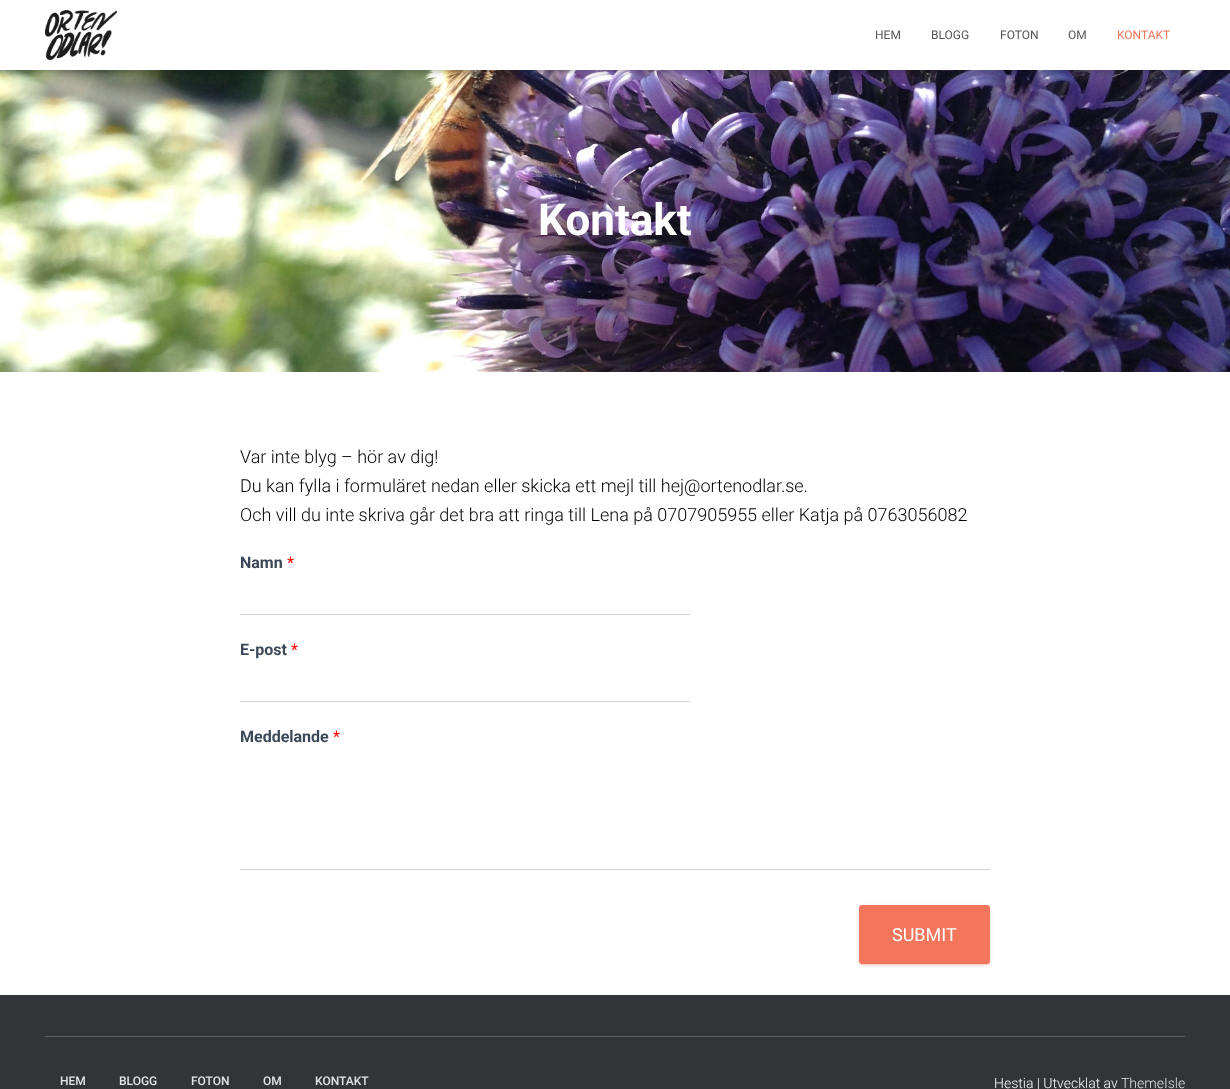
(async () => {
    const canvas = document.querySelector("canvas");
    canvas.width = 1230;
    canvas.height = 1089;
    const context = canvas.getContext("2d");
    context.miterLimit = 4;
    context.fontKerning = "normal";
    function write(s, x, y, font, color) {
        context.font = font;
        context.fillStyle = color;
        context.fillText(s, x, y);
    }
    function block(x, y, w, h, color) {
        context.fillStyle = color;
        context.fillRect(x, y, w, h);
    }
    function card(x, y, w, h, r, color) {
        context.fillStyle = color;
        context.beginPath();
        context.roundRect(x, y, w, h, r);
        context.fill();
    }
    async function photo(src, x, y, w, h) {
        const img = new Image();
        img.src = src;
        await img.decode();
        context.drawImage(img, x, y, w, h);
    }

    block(0, 0, 1230, 1089, "rgb(255, 255, 255)");
    await photo("media/2.png", 0, 70, 1230, 302);
    context.fillStyle = "rgba(0, 0, 0, 0.1)";
    context.filter = "blur(2.5px)";
    context.beginPath();
    context.rect(2, 6, 1226, 66);
    context.fill();
    context.filter = "none";
    context.fillStyle = "rgba(0, 0, 0, 0.12)";
    context.filter = "blur(5px)";
    context.beginPath();
    context.rect(0, 1, 1230, 70);
    context.fill();
    context.filter = "none";
    context.fillStyle = "rgba(0, 0, 0, 0.42)";
    context.filter = "blur(5px)";
    context.beginPath();
    context.rect(6, 7, 1218, 58);
    context.fill();
    context.filter = "none";
    block(0, 0, 1230, 70, "rgb(255, 255, 255)");
    await photo("media/1.png", 45, 10, 72, 50);
    write("HEM", 875, 39, "12px Roboto", "rgb(85, 85, 85)");
    write("BLOGG", 931, 39, "12px Roboto", "rgb(85, 85, 85)");
    write("FOTON", 1000, 39, "12px Roboto", "rgb(85, 85, 85)");
    write("OM", 1068, 39, "12px Roboto", "rgb(85, 85, 85)");
    write("KONTAKT", 1117, 39, "12px Roboto", "rgb(242, 117, 92)");
    write("Kontakt", 538, 235, "bold 44px Roboto", "rgb(255, 255, 255)");
    write("Var inte blyg – hör av dig!", 240, 463, "300 18px Roboto", "rgb(0, 0, 0)");
    write("Du kan fylla i formuläret nedan eller skicka ett mejl till hej@ortenodlar.se.", 240, 492, "300 18px Roboto", "rgb(0, 0, 0)");
    write("Och vill du inte skriva går det bra att ringa till Lena på 0707905955 eller Katja på 0763056082", 240, 521, "300 18px Roboto", "rgb(0, 0, 0)");
    write("Namn", 240, 568, "bold 16px Roboto", "rgb(60, 72, 88)");
    write("*", 287, 568, "16px Roboto", "rgb(255, 0, 0)");
    block(240, 614, 450, 1, "rgb(210, 210, 210)");
    write("E-post", 240, 655, "bold 16px Roboto", "rgb(60, 72, 88)");
    write("*", 291, 655, "16px Roboto", "rgb(255, 0, 0)");
    block(240, 701, 450, 1, "rgb(210, 210, 210)");
    write("Meddelande", 240, 742, "bold 16px Roboto", "rgb(60, 72, 88)");
    write("*", 333, 742, "16px Roboto", "rgb(255, 0, 0)");
    block(240, 869, 750, 1, "rgb(210, 210, 210)");
    context.fillStyle = "rgba(242, 117, 92, 0.12)";
    context.filter = "blur(2.5px)";
    context.beginPath();
    context.roundRect(859, 906, 131, 59, 3);
    context.fill();
    context.filter = "none";
    context.fillStyle = "rgba(242, 117, 92, 0.2)";
    context.filter = "blur(0.5px)";
    context.beginPath();
    context.roundRect(861, 910, 127, 55, 1);
    context.fill();
    context.filter = "none";
    context.fillStyle = "rgba(242, 117, 92, 0.14)";
    context.filter = "blur(1px)";
    context.beginPath();
    context.roundRect(859, 907, 131, 59, 3);
    context.fill();
    context.filter = "none";
    card(859, 905, 131, 59, 3, "rgb(242, 117, 92)");
    write("SUBMIT", 892, 941, "18px Roboto", "rgb(255, 255, 255)");
    block(0, 995, 1230, 94, "rgb(50, 52, 55)");
    block(45, 1036, 1140, 1, "rgb(91, 93, 95)");
    write("HEM", 60, 1085, "500 12px Roboto", "rgb(226, 227, 227)");
    write("BLOGG", 119, 1085, "500 12px Roboto", "rgb(226, 227, 227)");
    write("FOTON", 191, 1085, "500 12px Roboto", "rgb(226, 227, 227)");
    write("OM", 263, 1085, "500 12px Roboto", "rgb(226, 227, 227)");
    write("KONTAKT", 315, 1085, "500 12px Roboto", "rgb(226, 227, 227)");
    write("Hestia | Utvecklat av", 994, 1088, "300 14px Roboto", "rgb(255, 255, 255)");
    write("ThemeIsle", 1121, 1088, "300 14px Roboto", "rgb(226, 227, 227)");
})();
